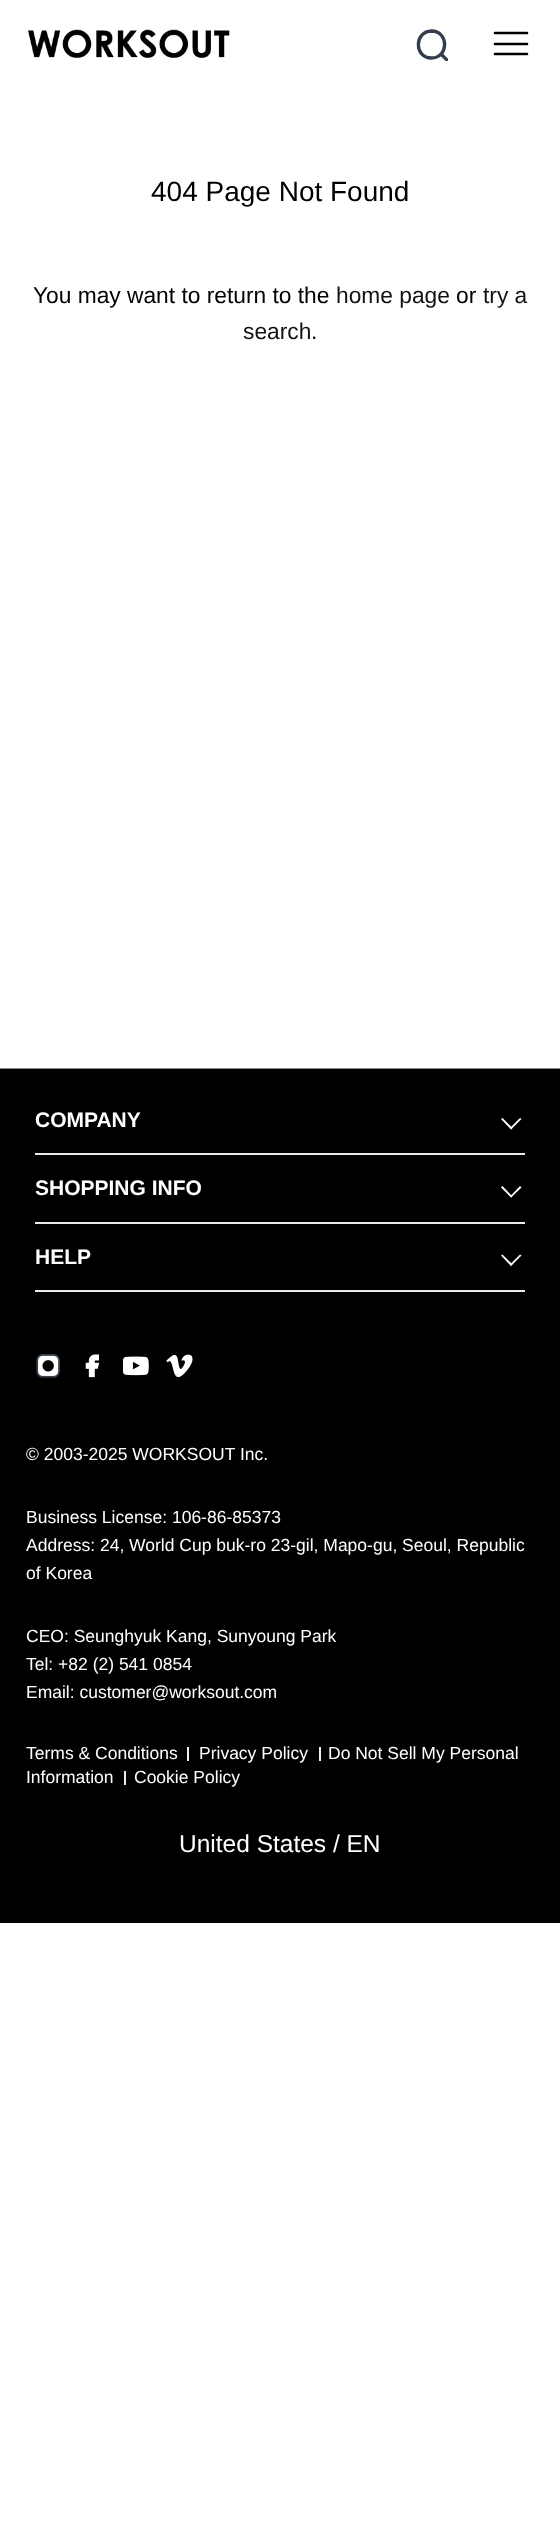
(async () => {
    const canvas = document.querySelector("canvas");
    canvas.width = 560;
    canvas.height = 2523;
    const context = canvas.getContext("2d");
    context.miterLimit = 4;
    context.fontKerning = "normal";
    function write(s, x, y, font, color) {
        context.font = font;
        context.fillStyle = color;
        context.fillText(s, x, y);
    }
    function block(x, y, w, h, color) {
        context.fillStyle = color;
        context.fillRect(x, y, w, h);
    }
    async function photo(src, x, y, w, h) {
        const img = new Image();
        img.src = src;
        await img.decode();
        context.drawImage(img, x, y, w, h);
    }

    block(0, 0, 560, 2523, "rgb(255, 255, 255)");
    await photo("media/1.png", 28, 29, 202, 29);
    context.save();
    context.beginPath();
    context.rect(413, 26, 35, 35);
    context.clip();
    context.beginPath();
    context.moveTo(431.5, 58);
    context.bezierCurveTo(449, 58, 449, 31, 431.5, 31);
    context.bezierCurveTo(414, 31.5, 414, 58, 431.5, 58);
    context.closePath();
    context.moveTo(448, 61);
    context.lineTo(441, 54);
    context.strokeStyle = "rgb(51, 61, 75)";
    context.lineWidth = 3.3;
    context.lineCap = "round";
    context.lineJoin = "round";
    context.stroke();
    context.restore();
    context.beginPath();
    context.moveTo(495, 44);
    context.lineTo(527, 44);
    context.moveTo(495, 33);
    context.lineTo(527, 33);
    context.moveTo(495, 54);
    context.lineTo(527, 54);
    context.strokeStyle = "rgb(0, 0, 0)";
    context.lineWidth = 2.6;
    context.lineCap = "round";
    context.lineJoin = "round";
    context.stroke();
    write("404 Page Not Found", 151, 201, "28px Liberation Sans", "rgb(0, 0, 0)");
    write("You may want to return to the", 33, 303, "22.75px Liberation Sans", "rgb(0, 0, 0)");
    write("home page", 336, 303, "22.75px Liberation Sans", "rgb(18, 18, 18)");
    write("or", 456, 303, "22.75px Liberation Sans", "rgb(0, 0, 0)");
    write("try a", 483, 303, "22.75px Liberation Sans", "rgb(18, 18, 18)");
    write("search", 243, 339, "22.75px Liberation Sans", "rgb(18, 18, 18)");
    write(".", 311, 339, "22.75px Liberation Sans", "rgb(0, 0, 0)");
    block(0, 1069, 560, 854, "rgb(0, 0, 0)");
    block(0, 1068, 560, 1, "rgb(136, 136, 136)");
    block(35, 1153, 490, 2, "rgb(235, 235, 235)");
    write("COMPANY", 35, 1127, "bold 21px Liberation Sans", "rgb(255, 255, 255)");
    context.beginPath();
    context.moveTo(520, 1118);
    context.lineTo(521.5, 1119);
    context.lineTo(511, 1129.5);
    context.lineTo(510, 1128);
    context.closePath();
    context.fill();
    context.beginPath();
    context.moveTo(502.5, 1118);
    context.lineTo(512.5, 1128);
    context.lineTo(511, 1129.5);
    context.lineTo(501, 1119);
    context.closePath();
    context.fill();
    block(35, 1222, 490, 2, "rgb(235, 235, 235)");
    write("SHOPPING INFO", 35, 1195, "bold 21px Liberation Sans", "rgb(255, 255, 255)");
    context.beginPath();
    context.moveTo(520, 1186);
    context.lineTo(521.5, 1187.5);
    context.lineTo(511, 1197.5);
    context.lineTo(510, 1196.5);
    context.closePath();
    context.fill();
    context.beginPath();
    context.moveTo(502.5, 1186);
    context.lineTo(512.5, 1196.5);
    context.lineTo(511, 1197.5);
    context.lineTo(501, 1187.5);
    context.closePath();
    context.fill();
    block(35, 1290, 490, 2, "rgb(235, 235, 235)");
    write("HELP", 35, 1264, "bold 21px Liberation Sans", "rgb(255, 255, 255)");
    context.beginPath();
    context.moveTo(520, 1254.5);
    context.lineTo(521.5, 1255.5);
    context.lineTo(511, 1266);
    context.lineTo(510, 1264.5);
    context.closePath();
    context.fill();
    context.beginPath();
    context.moveTo(502.5, 1254.5);
    context.lineTo(512.5, 1264.5);
    context.lineTo(511, 1266);
    context.lineTo(501, 1255.5);
    context.closePath();
    context.fill();
    await photo("media/2.png", 36, 1354, 24, 24);
    await photo("media/3.png", 85, 1354, 15, 24);
    await photo("media/4.png", 123, 1356, 26, 20);
    await photo("media/5.png", 166, 1354, 27, 24);
    write("© 2003-2025 WORKSOUT Inc.", 26, 1460, "17.5px Liberation Sans", "rgb(255, 255, 255)");
    write("Business License: 106-86-85373", 26, 1523, "17.5px Liberation Sans", "rgb(255, 255, 255)");
    write("Address: 24, World Cup buk-ro 23-gil, Mapo-gu, Seoul, Republic", 26, 1551, "17.5px Liberation Sans", "rgb(255, 255, 255)");
    write("of Korea", 26, 1579, "17.5px Liberation Sans", "rgb(255, 255, 255)");
    write("CEO: Seunghyuk Kang, Sunyoung Park", 26, 1642, "17.5px Liberation Sans", "rgb(255, 255, 255)");
    write("Tel: +82 (2) 541 0854", 26, 1670, "17.5px Liberation Sans", "rgb(255, 255, 255)");
    write("Email: customer@worksout.com", 26, 1698, "17.5px Liberation Sans", "rgb(255, 255, 255)");
    write("Terms & Conditions", 26, 1759, "17.5px Liberation Sans", "rgb(255, 255, 255)");
    block(319, 1747, 2, 14, "rgb(238, 238, 238)");
    write("Do Not Sell My Personal", 328, 1759, "17.5px Liberation Sans", "rgb(255, 255, 255)");
    write("Information", 26, 1783, "17.5px Liberation Sans", "rgb(255, 255, 255)");
    block(187, 1747, 2, 14, "rgb(238, 238, 238)");
    write("Privacy Policy", 199, 1759, "17.5px Liberation Sans", "rgb(255, 255, 255)");
    block(124, 1771, 2, 14, "rgb(238, 238, 238)");
    write("Cookie Policy", 134, 1783, "17.5px Liberation Sans", "rgb(255, 255, 255)");
    write("United States / EN", 179, 1852, "24.5px Liberation Sans", "rgb(255, 255, 255)");
})();
